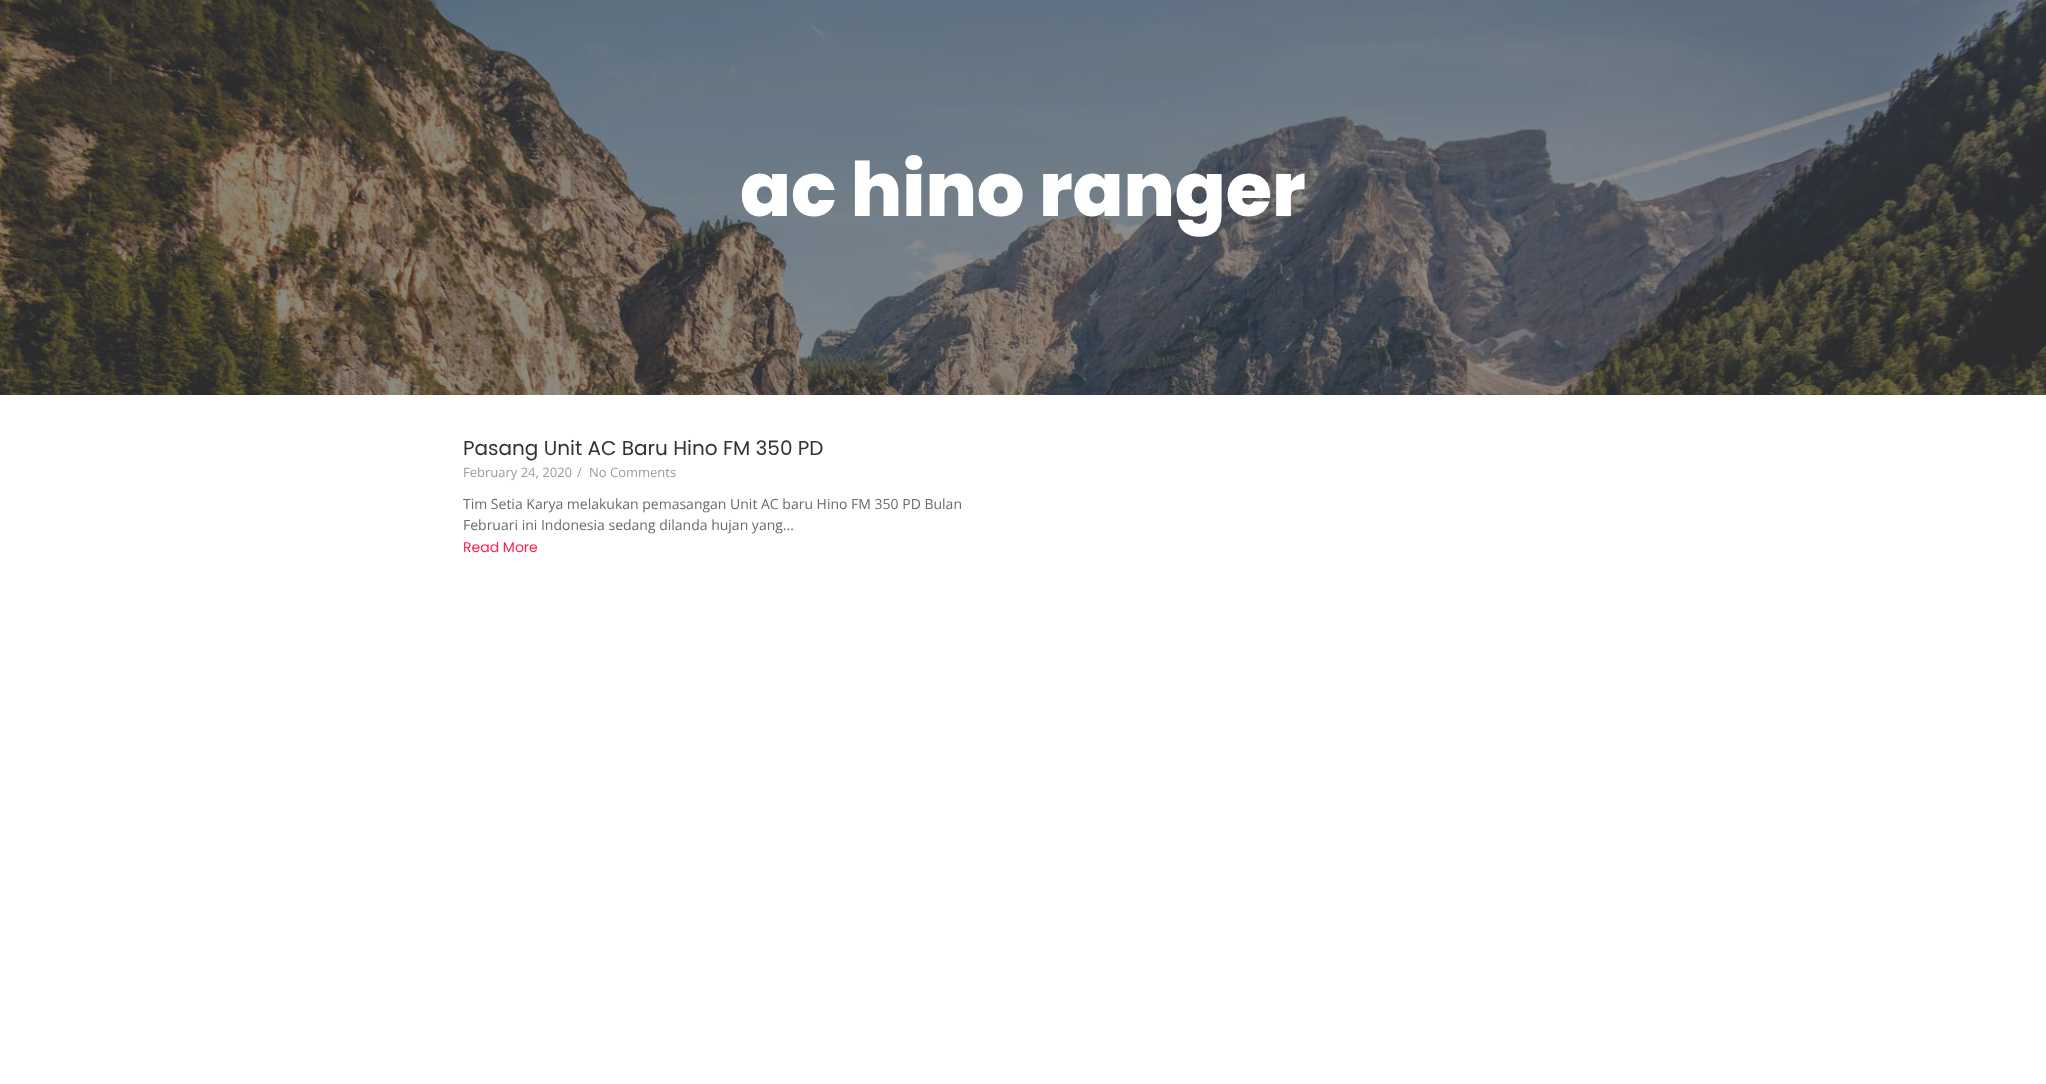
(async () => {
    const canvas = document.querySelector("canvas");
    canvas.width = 2046;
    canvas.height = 1084;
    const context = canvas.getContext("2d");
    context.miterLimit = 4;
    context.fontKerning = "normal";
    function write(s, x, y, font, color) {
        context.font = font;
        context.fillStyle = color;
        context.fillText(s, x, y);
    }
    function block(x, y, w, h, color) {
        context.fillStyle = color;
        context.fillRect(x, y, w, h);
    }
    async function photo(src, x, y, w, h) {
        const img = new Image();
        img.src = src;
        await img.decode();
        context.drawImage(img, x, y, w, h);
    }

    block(0, 0, 2046, 1084, "rgb(255, 255, 255)");
    await photo("media/1.png", 0, 0, 2046, 395);
    write("ac hino ranger", 740, 216, "800 75px Poppins", "rgb(255, 255, 255)");
    write("Pasang Unit AC Baru Hino FM 350 PD", 463, 455, "20px Poppins", "rgb(51, 51, 51)");
    write("February 24, 2020", 463, 477, "13px Open Sans", "rgb(156, 156, 156)");
    write("/", 577, 477, "13px Open Sans", "rgb(156, 156, 156)");
    write("No Comments", 589, 477, "13px Open Sans", "rgb(156, 156, 156)");
    write("Tim Setia Karya melakukan pemasangan Unit AC baru Hino FM 350 PD Bulan", 463, 509, "14px Open Sans", "rgb(106, 106, 106)");
    write("Februari ini Indonesia sedang dilanda hujan yang...", 463, 530, "14px Open Sans", "rgb(106, 106, 106)");
    write("Read More", 463, 552, "14px Poppins", "rgb(255, 34, 77)");
})();
